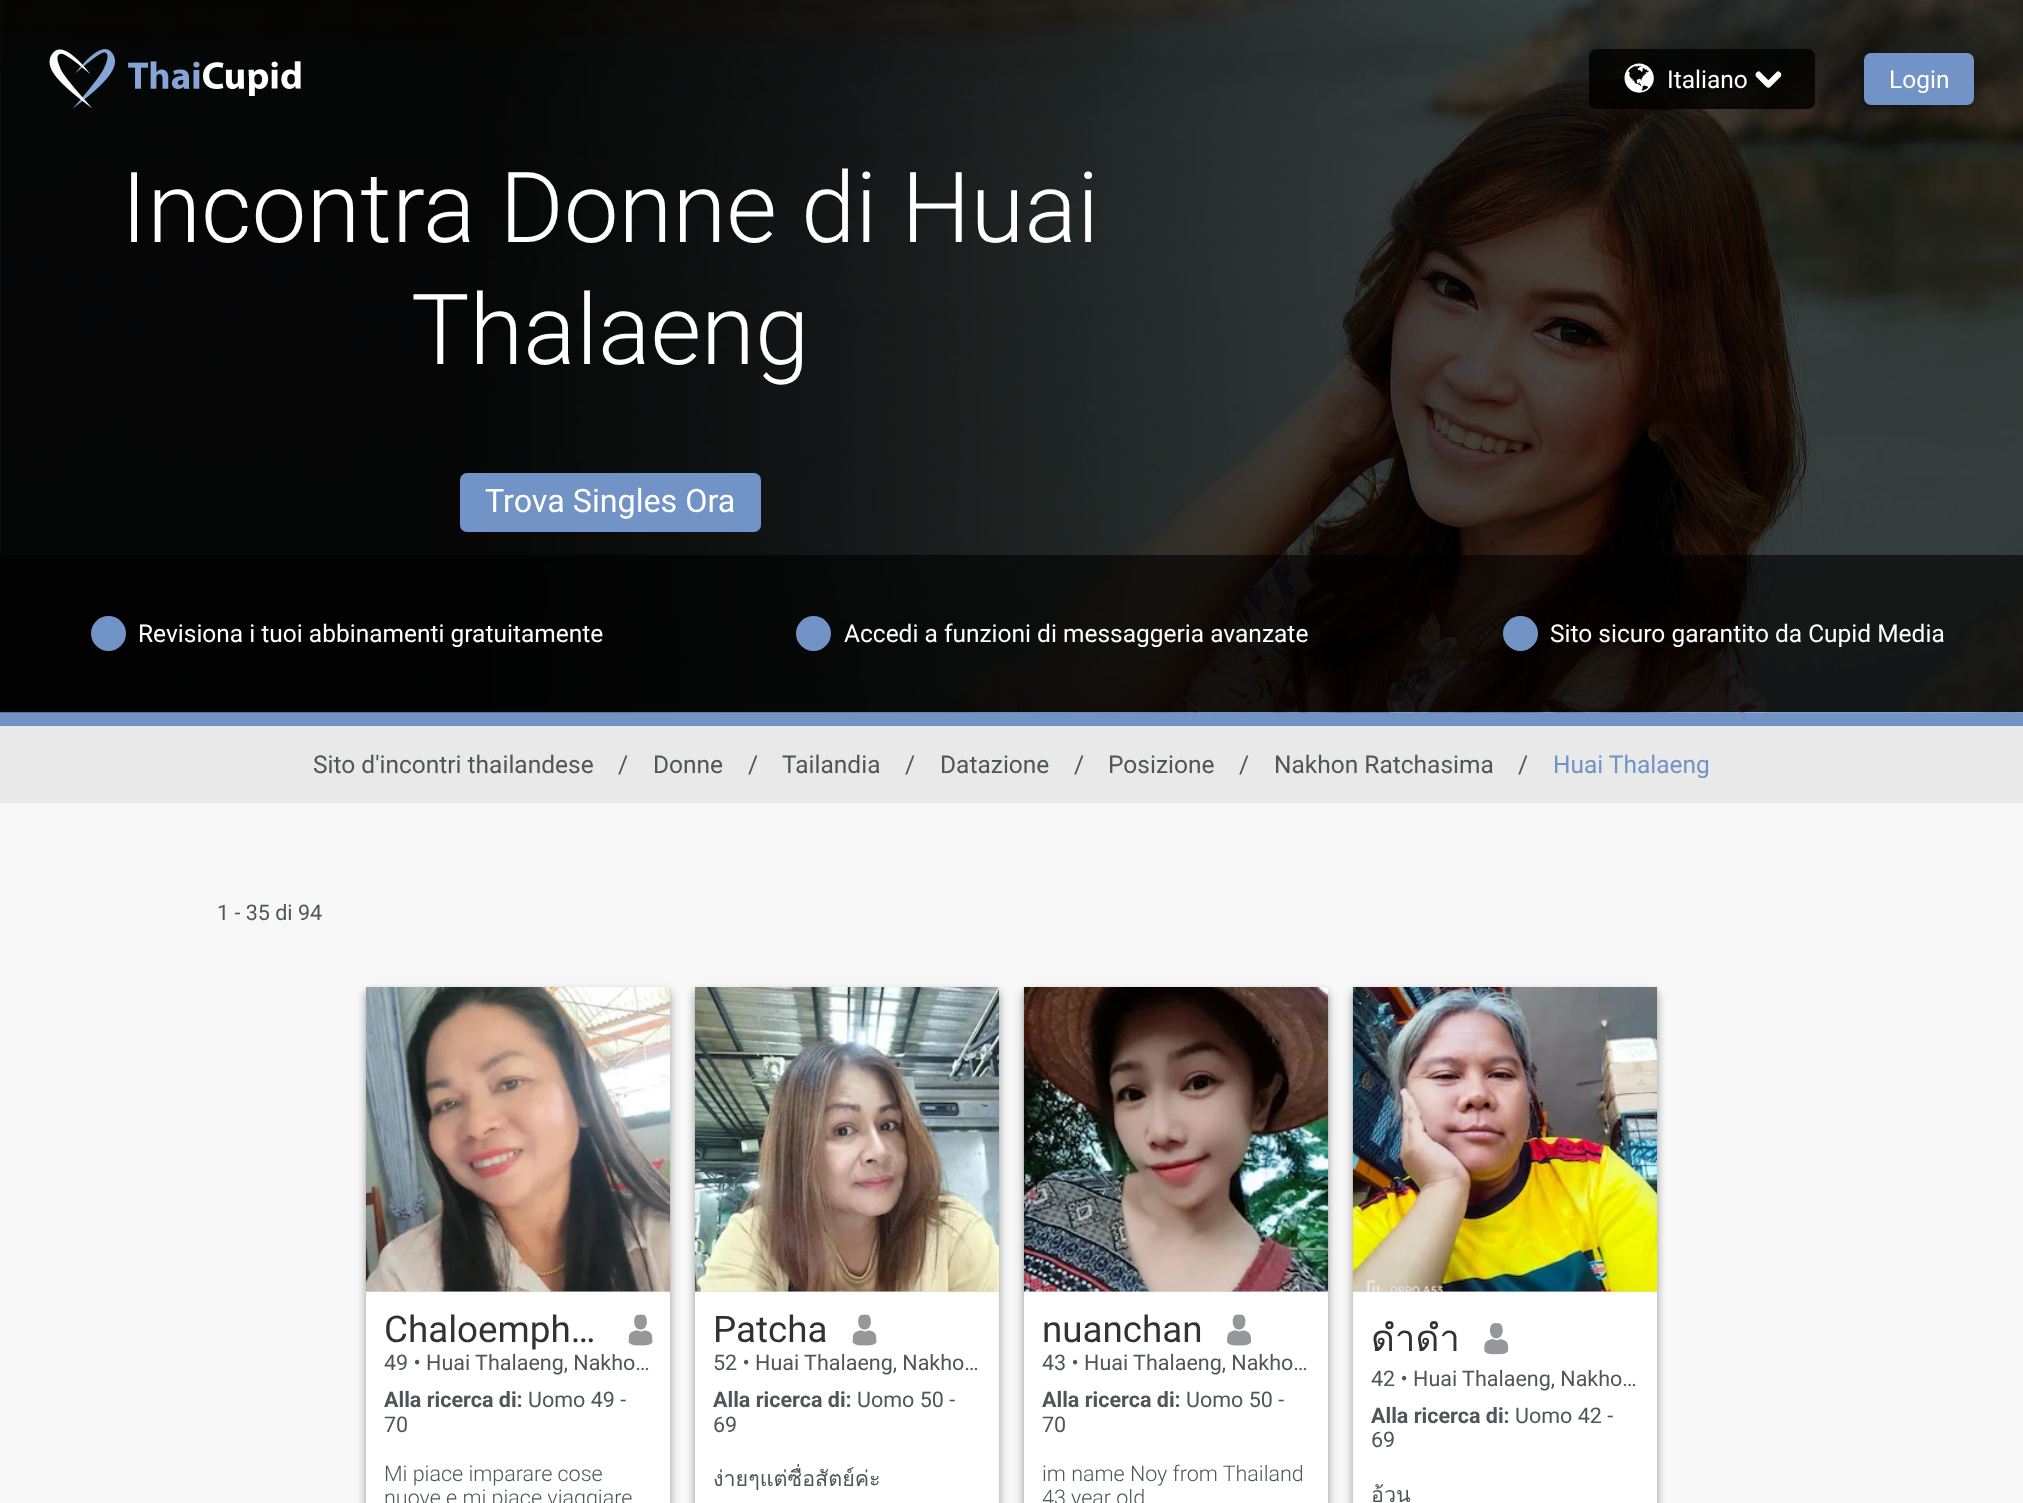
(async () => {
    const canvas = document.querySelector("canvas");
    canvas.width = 2023;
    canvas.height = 1503;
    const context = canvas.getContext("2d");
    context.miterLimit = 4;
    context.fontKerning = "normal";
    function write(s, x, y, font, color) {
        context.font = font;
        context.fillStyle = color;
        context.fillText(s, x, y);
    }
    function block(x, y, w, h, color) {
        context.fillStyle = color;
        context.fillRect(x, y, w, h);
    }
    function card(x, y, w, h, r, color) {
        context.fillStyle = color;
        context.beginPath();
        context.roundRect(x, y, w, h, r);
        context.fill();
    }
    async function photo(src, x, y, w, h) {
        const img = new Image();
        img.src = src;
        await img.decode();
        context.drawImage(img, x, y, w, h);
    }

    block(0, 0, 2023, 1503, "rgb(248, 248, 248)");
    block(0, 712, 2023, 14, "rgb(113, 147, 197)");
    await photo("media/5.png", 0, 0, 2023, 713);
    await photo("media/1.png", 49, 49, 66, 60);
    await photo("media/2.png", 128, 61, 173, 35);
    card(1589, 49, 226, 60, 7, "rgba(0, 0, 0, 0.8)");
    await photo("media/3.png", 1624, 63, 30, 30);
    write("Italiano", 1667, 88, "24.5px Roboto", "rgb(255, 255, 255)");
    await photo("media/4.png", 1755, 71, 27, 17);
    context.fillStyle = "rgba(0, 0, 0, 0.4)";
    context.filter = "blur(5px)";
    context.beginPath();
    context.roundRect(1864, 58, 110, 52, 7);
    context.fill();
    context.filter = "none";
    card(1864, 53, 110, 52, 7, "rgb(113, 147, 197)");
    write("Login", 1889, 88, "24.5px Roboto", "rgb(255, 255, 255)");
    write("Incontra Donne di Huai", 121, 242, "300 98px Roboto", "rgb(255, 255, 255)");
    write("Thalaeng", 411, 364, "300 98px Roboto", "rgb(255, 255, 255)");
    card(460, 473, 301, 59, 7, "rgb(113, 147, 197)");
    write("Trova Singles Ora", 485, 512, "32.25px Roboto", "rgb(255, 255, 255)");
    block(0, 555, 2023, 157, "rgba(0, 0, 0, 0.6)");
    context.fillStyle = "rgb(113, 147, 197)";
    context.beginPath();
    context.arc(108.5, 633.5, 17.5, 0, Math.PI * 2);
    context.fill();
    write("Revisiona i tuoi abbinamenti gratuitamente", 138, 642, "24.5px Roboto", "rgb(255, 255, 255)");
    context.fillStyle = "rgb(113, 147, 197)";
    context.beginPath();
    context.arc(813.5, 633.5, 17.5, 0, Math.PI * 2);
    context.fill();
    write("Accedi a funzioni di messaggeria avanzate", 844, 642, "24.5px Roboto", "rgb(255, 255, 255)");
    context.fillStyle = "rgb(113, 147, 197)";
    context.beginPath();
    context.arc(1520.5, 633.5, 17.5, 0, Math.PI * 2);
    context.fill();
    write("Sito sicuro garantito da Cupid Media", 1550, 642, "24.5px Roboto", "rgb(255, 255, 255)");
    block(0, 726, 2023, 77, "rgb(233, 233, 233)");
    write("Sito d'incontri thailandese", 313, 773, "24.5px Roboto", "rgb(80, 86, 86)");
    write("/", 618, 773, "24.5px Roboto", "rgb(80, 86, 86)");
    write("Donne", 653, 773, "24.5px Roboto", "rgb(80, 86, 86)");
    write("/", 748, 773, "24.5px Roboto", "rgb(80, 86, 86)");
    write("Tailandia", 782, 773, "24.5px Roboto", "rgb(80, 86, 86)");
    write("/", 905, 773, "24.5px Roboto", "rgb(80, 86, 86)");
    write("Datazione", 940, 773, "24.5px Roboto", "rgb(80, 86, 86)");
    write("/", 1074, 773, "24.5px Roboto", "rgb(80, 86, 86)");
    write("Posizione", 1108, 773, "24.5px Roboto", "rgb(80, 86, 86)");
    write("/", 1239, 773, "24.5px Roboto", "rgb(80, 86, 86)");
    write("Nakhon Ratchasima", 1274, 773, "24.5px Roboto", "rgb(80, 86, 86)");
    write("/", 1518, 773, "24.5px Roboto", "rgb(80, 86, 86)");
    write("Huai Thalaeng", 1553, 773, "24.5px Roboto", "rgb(113, 147, 197)");
    write("1 - 35 di 94", 217, 920, "21.5px Roboto", "rgb(80, 86, 86)");
    context.fillStyle = "rgba(0, 0, 0, 0.4)";
    context.filter = "blur(5px)";
    context.beginPath();
    context.rect(366, 992, 304, 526);
    context.fill();
    context.filter = "none";
    block(366, 1292, 304, 211, "rgb(255, 255, 255)");
    block(366, 1291, 304, 1, "rgb(224, 224, 224)");
    await photo("media/6.png", 365, 987, 306, 305);
    write("Chaloemph…", 384, 1342, "36.75px Roboto", "rgb(50, 50, 50)");
    await photo("media/7.png", 628, 1314, 25, 32);
    write("49 • Huai Thalaeng, Nakho…", 384, 1370, "21.5px Roboto", "rgb(80, 86, 86)");
    write("Alla ricerca di:", 384, 1407, "bold 21.5px Roboto", "rgb(80, 86, 86)");
    write("Uomo 49 -", 528, 1407, "21.5px Roboto", "rgb(80, 86, 86)");
    write("70", 384, 1432, "21.5px Roboto", "rgb(80, 86, 86)");
    write("Mi piace imparare cose", 384, 1481, "300 21.5px Roboto", "rgb(80, 86, 86)");
    write("nuove e mi piace viaggiare", 384, 1505, "300 21.5px Roboto", "rgb(80, 86, 86)");
    context.fillStyle = "rgba(0, 0, 0, 0.4)";
    context.filter = "blur(5px)";
    context.beginPath();
    context.rect(695, 992, 304, 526);
    context.fill();
    context.filter = "none";
    block(695, 1292, 304, 211, "rgb(255, 255, 255)");
    block(695, 1291, 304, 1, "rgb(224, 224, 224)");
    await photo("media/8.png", 694, 987, 306, 305);
    write("Patcha", 713, 1342, "36.75px Roboto", "rgb(50, 50, 50)");
    await photo("media/7.png", 852, 1314, 25, 32);
    write("52 • Huai Thalaeng, Nakho…", 713, 1370, "21.5px Roboto", "rgb(80, 86, 86)");
    write("Alla ricerca di:", 713, 1407, "bold 21.5px Roboto", "rgb(80, 86, 86)");
    write("Uomo 50 -", 857, 1407, "21.5px Roboto", "rgb(80, 86, 86)");
    write("69", 713, 1432, "21.5px Roboto", "rgb(80, 86, 86)");
    context.save();
    context.beginPath();
    context.rect(714, 1461, 268, 34);
    context.clip();
    write("ง่ายๆแต่ซื่อสัตย์ค่ะ", 713, 1486, "21.5px Loma", "rgb(80, 86, 86)");
    context.restore();
    context.fillStyle = "rgba(0, 0, 0, 0.4)";
    context.filter = "blur(5px)";
    context.beginPath();
    context.rect(1024, 992, 304, 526);
    context.fill();
    context.filter = "none";
    block(1024, 1292, 304, 211, "rgb(255, 255, 255)");
    block(1024, 1291, 304, 1, "rgb(224, 224, 224)");
    await photo("media/9.png", 1023, 987, 306, 305);
    write("nuanchan", 1042, 1342, "36.75px Roboto", "rgb(50, 50, 50)");
    await photo("media/10.png", 1227, 1314, 24, 32);
    write("43 • Huai Thalaeng, Nakho…", 1042, 1370, "21.5px Roboto", "rgb(80, 86, 86)");
    write("Alla ricerca di:", 1042, 1407, "bold 21.5px Roboto", "rgb(80, 86, 86)");
    write("Uomo 50 -", 1186, 1407, "21.5px Roboto", "rgb(80, 86, 86)");
    write("70", 1042, 1432, "21.5px Roboto", "rgb(80, 86, 86)");
    write("im name Noy from Thailand", 1042, 1481, "300 21.5px Roboto", "rgb(80, 86, 86)");
    write("43 year old", 1042, 1505, "300 21.5px Roboto", "rgb(80, 86, 86)");
    context.fillStyle = "rgba(0, 0, 0, 0.4)";
    context.filter = "blur(5px)";
    context.beginPath();
    context.rect(1353, 992, 304, 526);
    context.fill();
    context.filter = "none";
    block(1353, 1292, 304, 211, "rgb(255, 255, 255)");
    block(1353, 1291, 304, 1, "rgb(224, 224, 224)");
    await photo("media/11.png", 1352, 987, 306, 305);
    context.save();
    context.beginPath();
    context.rect(1372, 1309, 88, 58);
    context.clip();
    write("ดําดํา", 1371, 1351, "36.75px Loma", "rgb(50, 50, 50)");
    context.restore();
    await photo("media/12.png", 1484, 1323, 25, 32);
    write("42 • Huai Thalaeng, Nakho…", 1371, 1386, "21.5px Roboto", "rgb(80, 86, 86)");
    write("Alla ricerca di:", 1371, 1423, "bold 21.5px Roboto", "rgb(80, 86, 86)");
    write("Uomo 42 -", 1515, 1423, "21.5px Roboto", "rgb(80, 86, 86)");
    write("69", 1371, 1447, "21.5px Roboto", "rgb(80, 86, 86)");
    context.save();
    context.beginPath();
    context.rect(1372, 1477, 268, 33);
    context.clip();
    write("อ้วน", 1371, 1502, "21.5px Loma", "rgb(80, 86, 86)");
    context.restore();
})();
